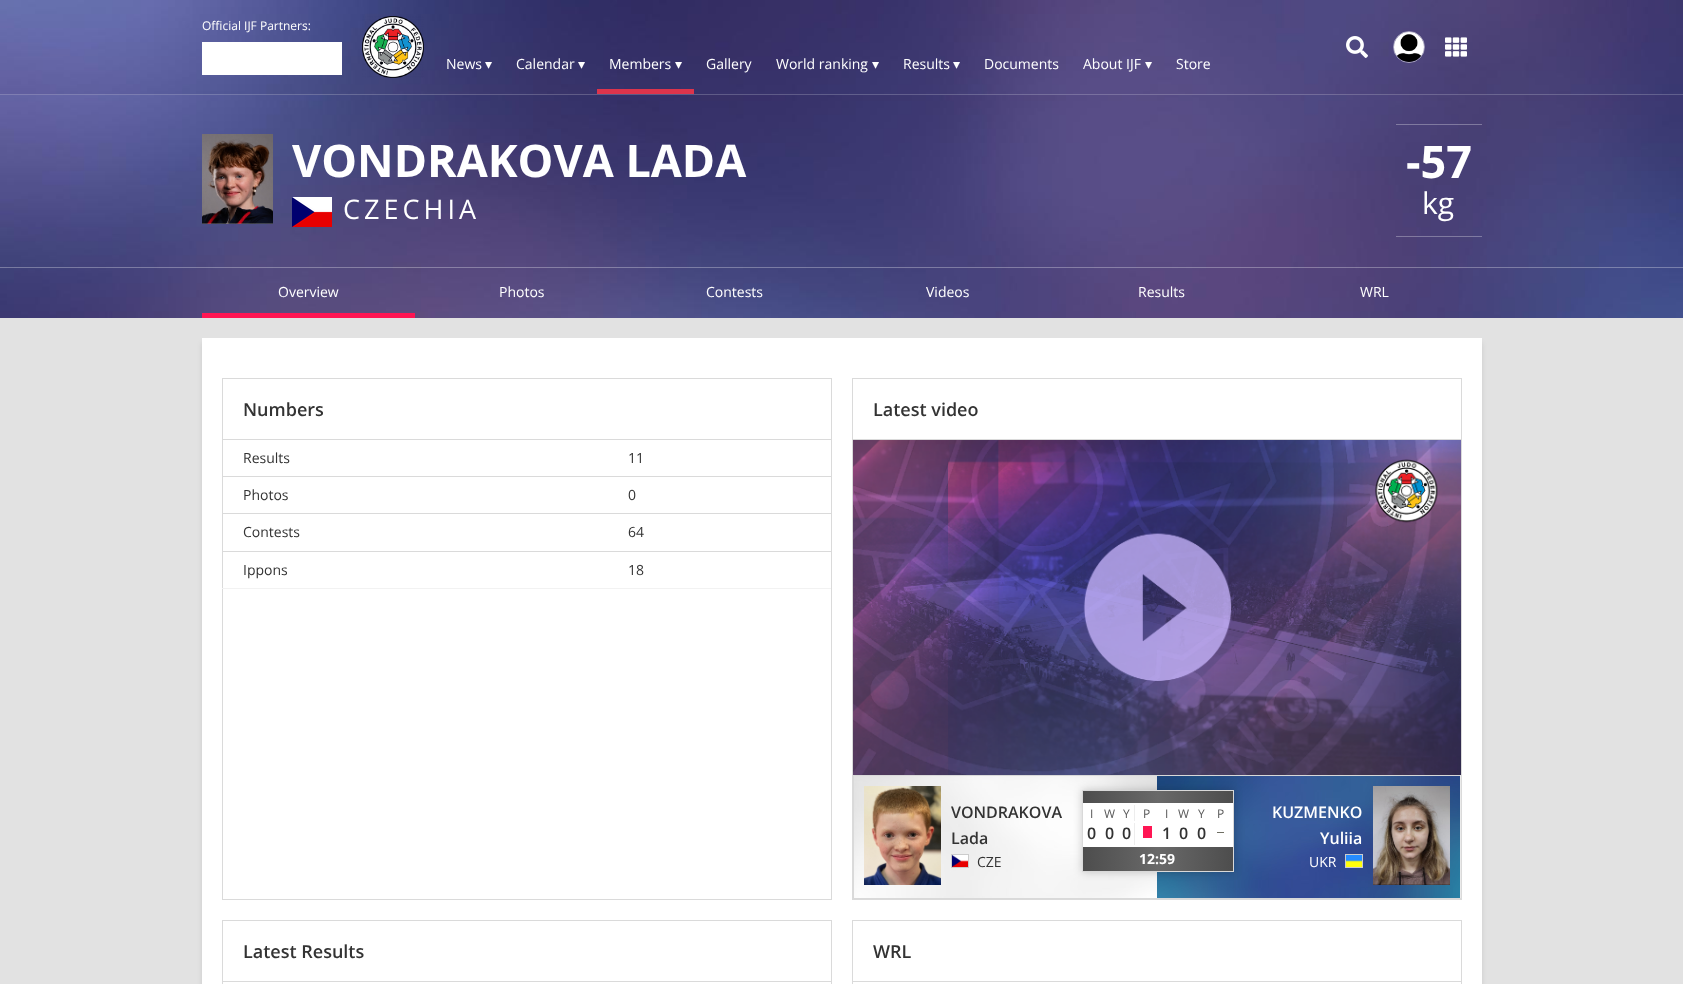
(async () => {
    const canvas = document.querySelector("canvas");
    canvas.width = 1683;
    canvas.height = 984;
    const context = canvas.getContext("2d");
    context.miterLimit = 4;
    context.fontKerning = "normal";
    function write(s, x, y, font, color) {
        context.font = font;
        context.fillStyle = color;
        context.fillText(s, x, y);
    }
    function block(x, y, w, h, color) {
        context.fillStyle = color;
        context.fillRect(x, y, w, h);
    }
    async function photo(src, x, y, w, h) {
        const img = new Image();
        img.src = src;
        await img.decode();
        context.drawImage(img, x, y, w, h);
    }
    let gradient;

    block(0, 0, 1683, 984, "rgb(226, 226, 226)");
    await photo("media/1.png", 0, 0, 1683, 95);
    block(0, 94, 1683, 1, "rgba(255, 255, 255, 0.2)");
    write("Official IJF Partners:", 202, 30, "12px Open Sans", "rgb(255, 255, 255)");
    block(202, 42, 140, 33, "rgb(255, 255, 255)");
    await photo("media/2.png", 362, 16, 62, 62);
    await photo("media/3.png", 1346, 36, 22, 22);
    context.beginPath();
    context.arc(1409, 47, 15.5, 0, Math.PI * 2);
    context.strokeStyle = "rgba(255, 255, 255, 0.5)";
    context.stroke();
    await photo("media/4.png", 1394, 32, 30, 30);
    await photo("media/5.png", 1445, 37, 22, 20);
    write("News", 446, 69, "14px Open Sans", "rgb(255, 255, 255)");
    write("▾", 485, 69, "14px DejaVu Sans", "rgb(255, 255, 255)");
    write("Calendar", 516, 69, "14px Open Sans", "rgb(255, 255, 255)");
    write("▾", 578, 69, "14px DejaVu Sans", "rgb(255, 255, 255)");
    write("Members", 609, 69, "14px Open Sans", "rgb(255, 255, 255)");
    write("▾", 675, 69, "14px DejaVu Sans", "rgb(255, 255, 255)");
    block(597, 89, 97, 5, "rgb(221, 52, 76)");
    write("Gallery", 706, 69, "14px Open Sans", "rgb(255, 255, 255)");
    write("World ranking", 776, 69, "14px Open Sans", "rgb(255, 255, 255)");
    write("▾", 872, 69, "14px DejaVu Sans", "rgb(255, 255, 255)");
    write("Results", 903, 69, "14px Open Sans", "rgb(255, 255, 255)");
    write("▾", 953, 69, "14px DejaVu Sans", "rgb(255, 255, 255)");
    write("Documents", 984, 69, "14px Open Sans", "rgb(255, 255, 255)");
    write("About IJF", 1083, 69, "14px Open Sans", "rgb(255, 255, 255)");
    write("▾", 1145, 69, "14px DejaVu Sans", "rgb(255, 255, 255)");
    write("Store", 1176, 69, "14px Open Sans", "rgb(255, 255, 255)");
    await photo("media/6.png", 0, 95, 1683, 223);
    await photo("media/7.png", 202, 134, 71, 90);
    write("VONDRAKOVA LADA", 292, 177, "bold 45px Open Sans", "rgb(255, 255, 255)");
    await photo("media/8.png", 292, 197, 40, 30);
    context.letterSpacing = "4px";
    write("CZECHIA", 343, 219, "27px Open Sans", "rgb(255, 255, 255)");
    block(1396, 124, 86, 1, "rgba(255, 255, 255, 0.3)");
    block(1396, 236, 86, 1, "rgba(255, 255, 255, 0.3)");
    context.letterSpacing = "0px";
    write("-57", 1406, 178, "bold 45px Open Sans", "rgb(255, 255, 255)");
    write("kg", 1422, 214, "30px Open Sans", "rgb(255, 255, 255)");
    block(0, 267, 1683, 1, "rgba(255, 255, 255, 0.3)");
    write("Overview", 278, 297, "14px Open Sans", "rgb(255, 255, 255)");
    block(202, 313, 213, 5, "rgb(255, 21, 83)");
    write("Photos", 499, 297, "14px Open Sans", "rgb(255, 255, 255)");
    write("Contests", 706, 297, "14px Open Sans", "rgb(255, 255, 255)");
    write("Videos", 926, 297, "14px Open Sans", "rgb(255, 255, 255)");
    write("Results", 1138, 297, "14px Open Sans", "rgb(255, 255, 255)");
    write("WRL", 1360, 297, "14px Open Sans", "rgb(255, 255, 255)");
    context.fillStyle = "rgba(0, 0, 0, 0.1)";
    context.filter = "blur(2.5px)";
    context.beginPath();
    context.rect(202, 343, 1280, 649);
    context.fill();
    context.filter = "none";
    block(202, 338, 1280, 646, "rgb(255, 255, 255)");
    context.strokeStyle = "rgb(218, 218, 218)";
    context.strokeRect(222.5, 378.5, 609, 521);
    block(223, 439, 608, 1, "rgb(218, 218, 218)");
    write("Numbers", 243, 416, "600 18px Open Sans", "rgb(51, 51, 51)");
    write("Results", 243, 463, "14px Open Sans", "rgb(51, 51, 51)");
    write("11", 628, 463, "14px Open Sans", "rgb(51, 51, 51)");
    write("Photos", 243, 500, "14px Open Sans", "rgb(51, 51, 51)");
    block(222, 476, 609, 1, "rgb(218, 218, 218)");
    write("0", 628, 500, "14px Open Sans", "rgb(51, 51, 51)");
    write("Contests", 243, 537, "14px Open Sans", "rgb(51, 51, 51)");
    block(222, 513, 609, 1, "rgb(218, 218, 218)");
    write("64", 628, 537, "14px Open Sans", "rgb(51, 51, 51)");
    write("Ippons", 243, 575, "14px Open Sans", "rgb(51, 51, 51)");
    block(222, 551, 609, 1, "rgb(218, 218, 218)");
    block(222, 588, 609, 1, "rgb(242, 242, 242)");
    write("18", 628, 575, "14px Open Sans", "rgb(51, 51, 51)");
    context.strokeRect(852.5, 378.5, 609, 521);
    block(853, 439, 608, 1, "rgb(218, 218, 218)");
    write("Latest video", 873, 416, "600 18px Open Sans", "rgb(51, 51, 51)");
    await photo("media/9.png", 853, 440, 608, 335);
    await photo("media/10.png", 854, 776, 303, 122);
    block(853, 775, 608, 1, "rgb(217, 217, 217)");
    block(853, 898, 304, 1, "rgb(217, 217, 217)");
    block(853, 775, 1, 124, "rgb(217, 217, 217)");
    await photo("media/11.png", 864, 786, 77, 99);
    write("VONDRAKOVA", 951, 818, "600 16px Open Sans", "rgb(51, 51, 51)");
    write("Lada", 951, 844, "600 16px Open Sans", "rgb(51, 51, 51)");
    context.strokeStyle = "rgb(204, 204, 204)";
    context.strokeRect(951.5, 854.5, 17, 13);
    await photo("media/12.png", 952, 855, 16, 12);
    write("CZE", 977, 867, "14px Open Sans", "rgb(51, 51, 51)");
    await photo("media/13.png", 1157, 776, 303, 122);
    context.fillStyle = "rgba(0, 0, 0, 0.2)";
    context.filter = "blur(4px)";
    context.beginPath();
    context.rect(1082, 790, 152, 82);
    context.fill();
    context.filter = "none";
    context.strokeStyle = "rgb(217, 217, 217)";
    context.strokeRect(1082.5, 790.5, 151, 81);
    gradient = context.createLinearGradient(1083, 797, 1233, 797);
    gradient.addColorStop(0, "rgb(77, 77, 77)");
    gradient.addColorStop(0.5, "rgb(105, 105, 105)");
    gradient.addColorStop(1, "rgb(77, 77, 77)");
    context.fillStyle = gradient;
    context.fillRect(1083, 791, 150, 12);
    block(1083, 803, 150, 44, "rgb(255, 255, 255)");
    write("I", 1090, 818, "12px Open Sans", "rgb(89, 89, 89)");
    write("W", 1104, 818, "12px Open Sans", "rgb(89, 89, 89)");
    block(1134, 805, 1, 16, "rgb(237, 237, 237)");
    write("Y", 1123, 818, "12px Open Sans", "rgb(89, 89, 89)");
    write("P", 1143, 818, "12px Open Sans", "rgb(89, 89, 89)");
    write("I", 1165, 818, "12px Open Sans", "rgb(89, 89, 89)");
    write("W", 1178, 818, "12px Open Sans", "rgb(89, 89, 89)");
    write("Y", 1198, 818, "12px Open Sans", "rgb(89, 89, 89)");
    write("P", 1217, 818, "12px Open Sans", "rgb(89, 89, 89)");
    write("0", 1087, 839, "600 16px Open Sans", "rgb(51, 51, 51)");
    write("0", 1105, 839, "600 16px Open Sans", "rgb(51, 51, 51)");
    block(1134, 823, 1, 22, "rgb(237, 237, 237)");
    write("0", 1122, 839, "600 16px Open Sans", "rgb(51, 51, 51)");
    block(1143, 826, 9, 12, "rgb(255, 21, 83)");
    write("1", 1162, 839, "600 16px Open Sans", "rgb(51, 51, 51)");
    write("0", 1179, 839, "600 16px Open Sans", "rgb(51, 51, 51)");
    write("0", 1197, 839, "600 16px Open Sans", "rgb(51, 51, 51)");
    block(1217, 832, 7, 1, "rgb(111, 111, 100)");
    gradient = context.createLinearGradient(1083, 859, 1233, 859);
    gradient.addColorStop(0, "rgb(77, 77, 77)");
    gradient.addColorStop(0.5, "rgb(105, 105, 105)");
    gradient.addColorStop(1, "rgb(77, 77, 77)");
    context.fillStyle = gradient;
    context.fillRect(1083, 847, 150, 24);
    write("12:59", 1139, 864, "bold 14px Open Sans", "rgb(255, 255, 255)");
    block(1460, 775, 1, 124, "rgb(234, 234, 234)");
    block(1157, 898, 304, 1, "rgb(217, 217, 217)");
    write("KUZMENKO", 1272, 818, "600 16px Open Sans", "rgb(255, 255, 255)");
    write("Yuliia", 1320, 844, "600 16px Open Sans", "rgb(255, 255, 255)");
    write("UKR", 1309, 867, "14px Open Sans", "rgb(255, 255, 255)");
    context.strokeStyle = "rgb(204, 204, 204)";
    context.strokeRect(1345.5, 854.5, 17, 13);
    await photo("media/14.png", 1346, 855, 16, 12);
    await photo("media/15.png", 1373, 786, 77, 99);
    context.strokeStyle = "rgb(218, 218, 218)";
    context.strokeRect(222.5, 920.5, 609, 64);
    block(223, 981, 608, 1, "rgb(218, 218, 218)");
    write("Latest Results", 243, 958, "600 18px Open Sans", "rgb(51, 51, 51)");
    context.strokeRect(852.5, 920.5, 609, 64);
    block(853, 981, 608, 1, "rgb(218, 218, 218)");
    write("WRL", 873, 958, "600 18px Open Sans", "rgb(51, 51, 51)");
})();
